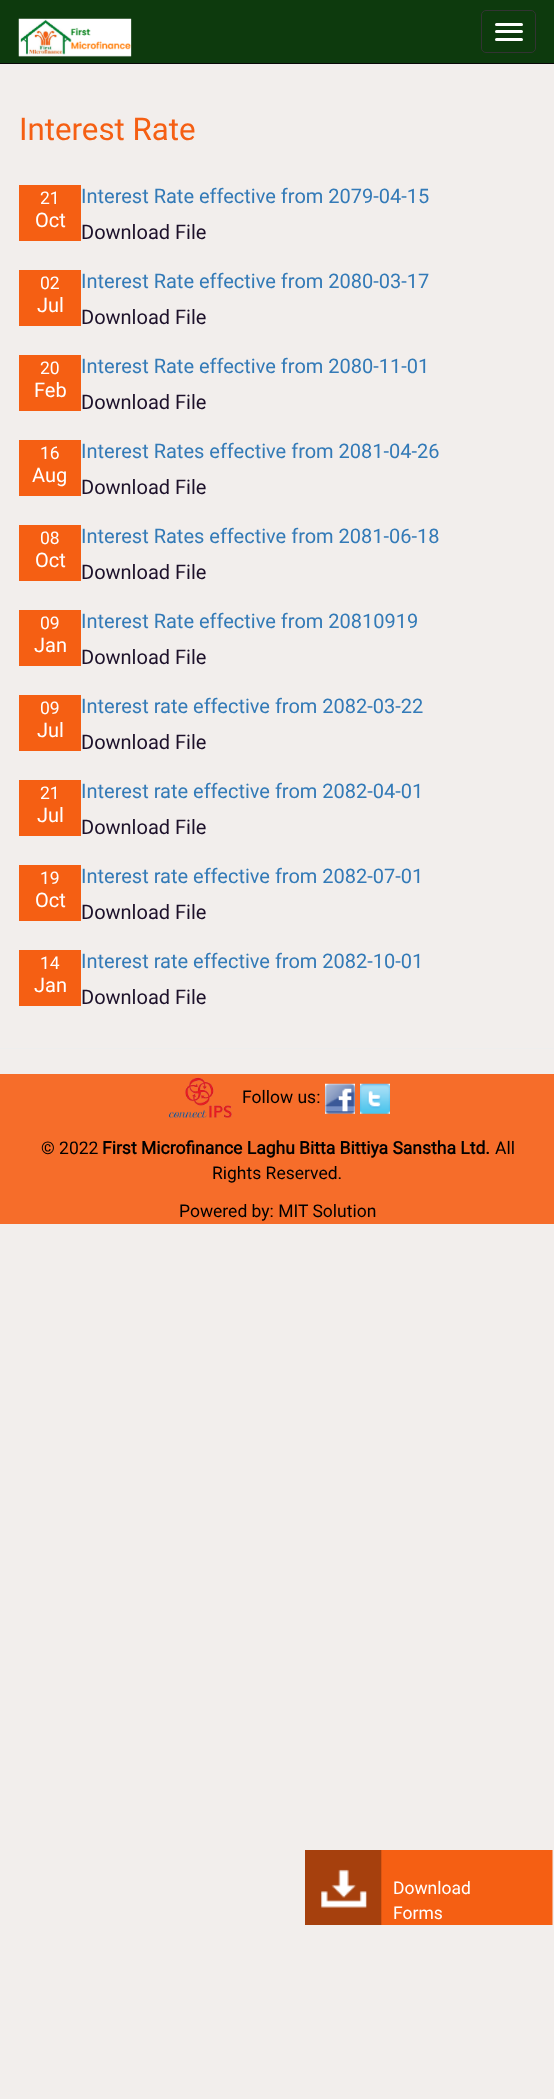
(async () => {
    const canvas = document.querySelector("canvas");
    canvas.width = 554;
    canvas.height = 2099;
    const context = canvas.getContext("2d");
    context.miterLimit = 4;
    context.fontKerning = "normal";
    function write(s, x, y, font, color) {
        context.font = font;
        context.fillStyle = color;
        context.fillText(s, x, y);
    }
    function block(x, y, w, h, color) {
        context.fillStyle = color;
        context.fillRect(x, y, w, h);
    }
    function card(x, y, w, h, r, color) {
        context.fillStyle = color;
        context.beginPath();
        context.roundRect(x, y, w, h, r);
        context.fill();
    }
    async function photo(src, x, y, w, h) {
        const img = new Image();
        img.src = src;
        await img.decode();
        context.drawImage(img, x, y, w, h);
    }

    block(0, 0, 554, 2099, "rgb(242, 238, 236)");
    block(0, 0, 554, 63, "rgb(13, 58, 13)");
    block(0, 63, 554, 1, "rgb(8, 8, 8)");
    await photo("media/1.png", 18, 18, 114, 39);
    context.beginPath();
    context.roundRect(481.5, 10.5, 54, 42, 4.5);
    context.strokeStyle = "rgb(51, 51, 51)";
    context.stroke();
    card(495, 23, 28, 3, 1.5, "rgb(255, 255, 255)");
    card(495, 30, 28, 3, 1.5, "rgb(255, 255, 255)");
    card(495, 38, 28, 3, 1.5, "rgb(255, 255, 255)");
    write("Interest Rate", 19, 140, "31.25px Roboto", "rgb(245, 95, 19)");
    block(19, 185, 62, 56, "rgb(245, 95, 19)");
    write("21", 40, 204, "17.5px Roboto", "rgb(255, 255, 255)");
    write("Oct", 35, 227, "20px Roboto", "rgb(255, 255, 255)");
    write("Interest Rate effective from 2079-04-15", 81, 203, "20px Roboto", "rgb(51, 122, 183)");
    write("Download File", 81, 239, "20px Roboto", "rgb(28, 16, 42)");
    block(19, 270, 62, 56, "rgb(245, 95, 19)");
    write("02", 40, 289, "17.5px Roboto", "rgb(255, 255, 255)");
    write("Jul", 37, 312, "20px Roboto", "rgb(255, 255, 255)");
    write("Interest Rate effective from 2080-03-17", 81, 288, "20px Roboto", "rgb(51, 122, 183)");
    write("Download File", 81, 324, "20px Roboto", "rgb(28, 16, 42)");
    block(19, 355, 62, 56, "rgb(245, 95, 19)");
    write("20", 40, 374, "17.5px Roboto", "rgb(255, 255, 255)");
    write("Feb", 34, 397, "20px Roboto", "rgb(255, 255, 255)");
    write("Interest Rate effective from 2080-11-01", 81, 373, "20px Roboto", "rgb(51, 122, 183)");
    write("Download File", 81, 409, "20px Roboto", "rgb(28, 16, 42)");
    block(19, 440, 62, 56, "rgb(245, 95, 19)");
    write("16", 40, 459, "17.5px Roboto", "rgb(255, 255, 255)");
    write("Aug", 32, 482, "20px Roboto", "rgb(255, 255, 255)");
    write("Interest Rates effective from 2081-04-26", 81, 458, "20px Roboto", "rgb(51, 122, 183)");
    write("Download File", 81, 494, "20px Roboto", "rgb(28, 16, 42)");
    block(19, 525, 62, 56, "rgb(245, 95, 19)");
    write("08", 40, 544, "17.5px Roboto", "rgb(255, 255, 255)");
    write("Oct", 35, 567, "20px Roboto", "rgb(255, 255, 255)");
    write("Interest Rates effective from 2081-06-18", 81, 543, "20px Roboto", "rgb(51, 122, 183)");
    write("Download File", 81, 579, "20px Roboto", "rgb(28, 16, 42)");
    block(19, 610, 62, 56, "rgb(245, 95, 19)");
    write("09", 40, 629, "17.5px Roboto", "rgb(255, 255, 255)");
    write("Jan", 34, 652, "20px Roboto", "rgb(255, 255, 255)");
    write("Interest Rate effective from 20810919", 81, 628, "20px Roboto", "rgb(51, 122, 183)");
    write("Download File", 81, 664, "20px Roboto", "rgb(28, 16, 42)");
    block(19, 695, 62, 56, "rgb(245, 95, 19)");
    write("09", 40, 714, "17.5px Roboto", "rgb(255, 255, 255)");
    write("Jul", 37, 737, "20px Roboto", "rgb(255, 255, 255)");
    write("Interest rate effective from 2082-03-22", 81, 713, "20px Roboto", "rgb(51, 122, 183)");
    write("Download File", 81, 749, "20px Roboto", "rgb(28, 16, 42)");
    block(19, 780, 62, 56, "rgb(245, 95, 19)");
    write("21", 40, 799, "17.5px Roboto", "rgb(255, 255, 255)");
    write("Jul", 37, 822, "20px Roboto", "rgb(255, 255, 255)");
    write("Interest rate effective from 2082-04-01", 81, 798, "20px Roboto", "rgb(51, 122, 183)");
    write("Download File", 81, 834, "20px Roboto", "rgb(28, 16, 42)");
    block(19, 865, 62, 56, "rgb(245, 95, 19)");
    write("19", 40, 884, "17.5px Roboto", "rgb(255, 255, 255)");
    write("Oct", 35, 907, "20px Roboto", "rgb(255, 255, 255)");
    write("Interest rate effective from 2082-07-01", 81, 883, "20px Roboto", "rgb(51, 122, 183)");
    write("Download File", 81, 919, "20px Roboto", "rgb(28, 16, 42)");
    block(19, 950, 62, 56, "rgb(245, 95, 19)");
    write("14", 40, 969, "17.5px Roboto", "rgb(255, 255, 255)");
    write("Jan", 34, 992, "20px Roboto", "rgb(255, 255, 255)");
    write("Interest rate effective from 2082-10-01", 81, 968, "20px Roboto", "rgb(51, 122, 183)");
    write("Download File", 81, 1004, "20px Roboto", "rgb(28, 16, 42)");
    block(0, 1048, 554, 1, "rgb(238, 238, 238)");
    block(0, 1074, 554, 150, "rgb(246, 109, 42)");
    await photo("media/2.png", 168, 1077, 64, 41);
    write("Follow us:", 242, 1103, "17.5px Roboto", "rgb(0, 0, 0)");
    await photo("media/3.png", 325, 1083, 30, 31);
    await photo("media/4.png", 360, 1083, 30, 31);
    write("© 2022", 41, 1154, "17.5px Roboto", "rgb(0, 0, 0)");
    write("First Microfinance Laghu Bitta Bittiya Sanstha Ltd.", 102, 1154, "bold 17.5px Roboto", "rgb(0, 0, 0)");
    write("All", 495, 1154, "17.5px Roboto", "rgb(0, 0, 0)");
    write("Rights Reserved.", 212, 1179, "17.5px Roboto", "rgb(0, 0, 0)");
    write("Powered by: MIT Solution", 179, 1217, "17.5px Roboto", "rgb(0, 0, 0)");
    await photo("media/5.png", 305, 1850, 248, 75);
    write("Download", 393, 1894, "17.5px Roboto", "rgb(255, 255, 255)");
    write("Forms", 393, 1919, "17.5px Roboto", "rgb(255, 255, 255)");
})();
